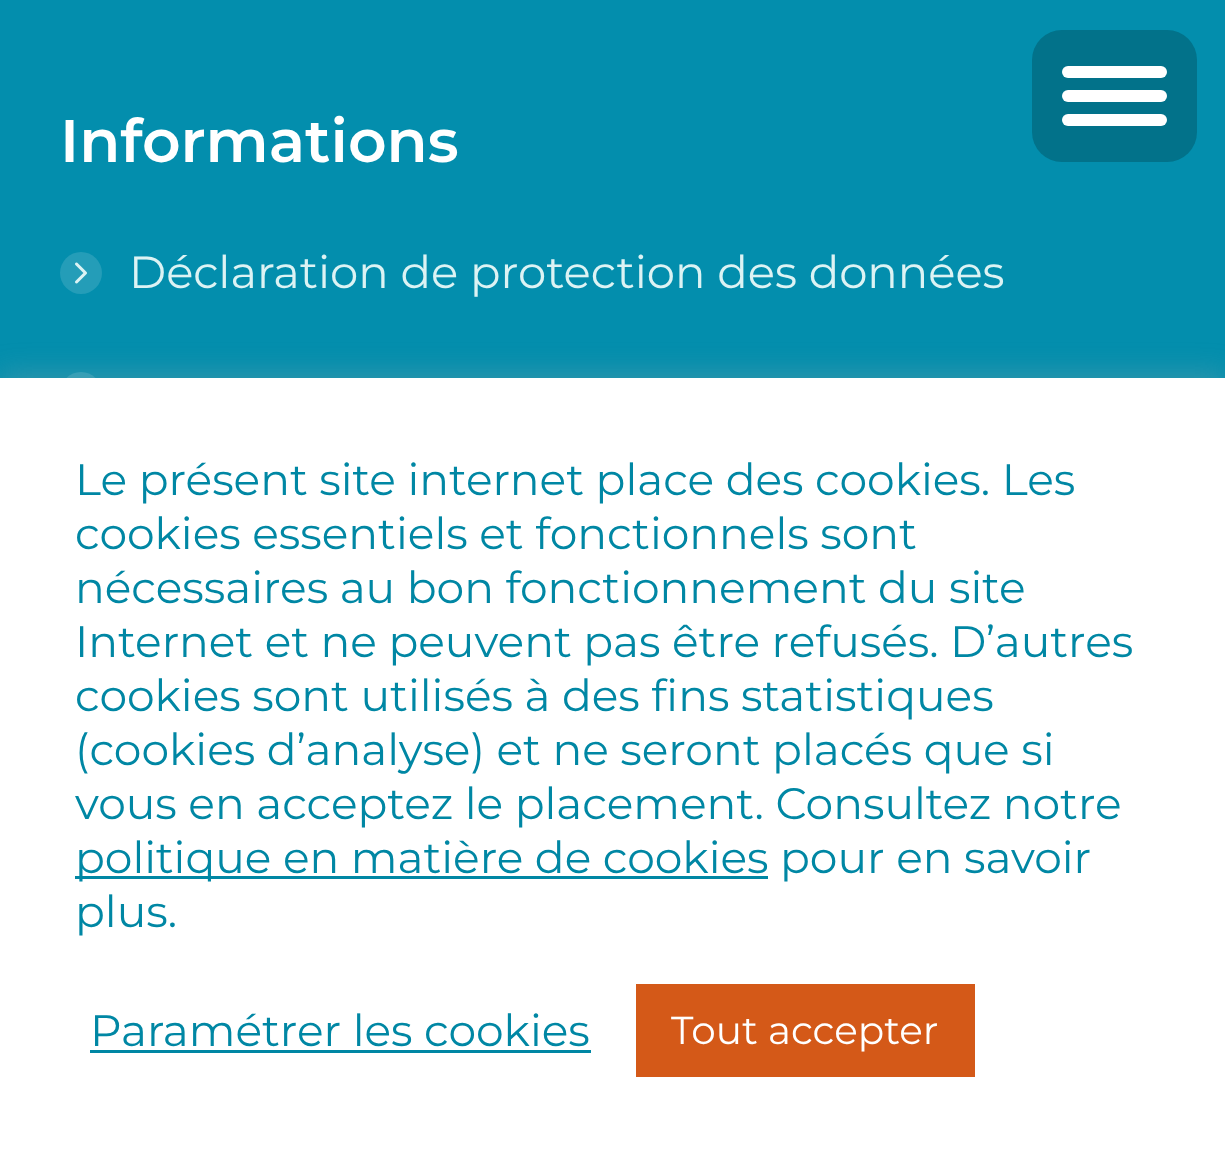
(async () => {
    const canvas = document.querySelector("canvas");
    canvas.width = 1225;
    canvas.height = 1167;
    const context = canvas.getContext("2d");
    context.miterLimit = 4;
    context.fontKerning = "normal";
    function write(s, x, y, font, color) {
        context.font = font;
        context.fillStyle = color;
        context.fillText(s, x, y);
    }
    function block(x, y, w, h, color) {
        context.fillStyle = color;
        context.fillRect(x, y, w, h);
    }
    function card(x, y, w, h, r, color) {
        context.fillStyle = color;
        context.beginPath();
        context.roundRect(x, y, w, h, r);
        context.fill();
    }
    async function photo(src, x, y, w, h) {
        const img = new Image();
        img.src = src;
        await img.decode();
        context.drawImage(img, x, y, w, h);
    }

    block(0, 0, 1225, 1167, "rgb(3, 142, 173)");
    card(1032, 30, 165, 132, 30, "rgb(2, 114, 138)");
    card(1062, 66, 105, 12, 6, "rgb(255, 255, 255)");
    card(1062, 90, 105, 12, 6, "rgb(255, 255, 255)");
    card(1062, 114, 105, 12, 6, "rgb(255, 255, 255)");
    write("Informations", 60, 162, "600 60px Montserrat", "rgb(255, 255, 255)");
    context.fillStyle = "rgb(36, 157, 184)";
    context.beginPath();
    context.arc(81, 273, 21, 0, Math.PI * 2);
    context.fill();
    write("Déclaration de protection des données", 129, 288, "45px Montserrat", "rgb(220, 243, 244)");
    await photo("media/1.png", 75, 262, 12, 22);
    context.fillStyle = "rgb(36, 157, 184)";
    context.beginPath();
    context.arc(81, 393, 21, 0, Math.PI * 2);
    context.fill();
    context.fillStyle = "rgba(172, 171, 171, 0.3)";
    context.filter = "blur(15px)";
    context.beginPath();
    context.rect(0, 375, 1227, 789);
    context.fill();
    context.filter = "none";
    block(0, 378, 1225, 789, "rgb(255, 255, 255)");
    write("Le présent site internet place des cookies. Les", 75, 495, "44px Montserrat", "rgb(0, 135, 164)");
    write("cookies essentiels et fonctionnels sont", 75, 549, "44px Montserrat", "rgb(0, 135, 164)");
    write("nécessaires au bon fonctionnement du site", 75, 603, "44px Montserrat", "rgb(0, 135, 164)");
    write("Internet et ne peuvent pas être refusés. D’autres", 75, 657, "44px Montserrat", "rgb(0, 135, 164)");
    write("cookies sont utilisés à des fins statistiques", 75, 711, "44px Montserrat", "rgb(0, 135, 164)");
    write("(cookies d’analyse) et ne seront placés que si", 75, 765, "44px Montserrat", "rgb(0, 135, 164)");
    write("vous en acceptez le placement. Consultez notre", 75, 819, "44px Montserrat", "rgb(0, 135, 164)");
    block(75, 876, 693, 3, "rgb(0, 135, 164)");
    write("politique en matière de cookies", 75, 873, "44px Montserrat", "rgb(0, 135, 164)");
    write("pour en savoir", 780, 873, "44px Montserrat", "rgb(0, 135, 164)");
    write("plus.", 75, 927, "44px Montserrat", "rgb(0, 135, 164)");
    write("Paramétrer les cookies", 90, 1046, "44px Montserrat", "rgb(0, 135, 164)");
    block(90, 1050, 501, 3, "rgb(0, 135, 164)");
    block(636, 984, 339, 93, "rgb(212, 89, 24)");
    write("Tout accepter", 671, 1044, "39px Montserrat", "rgb(255, 255, 255)");
})();
